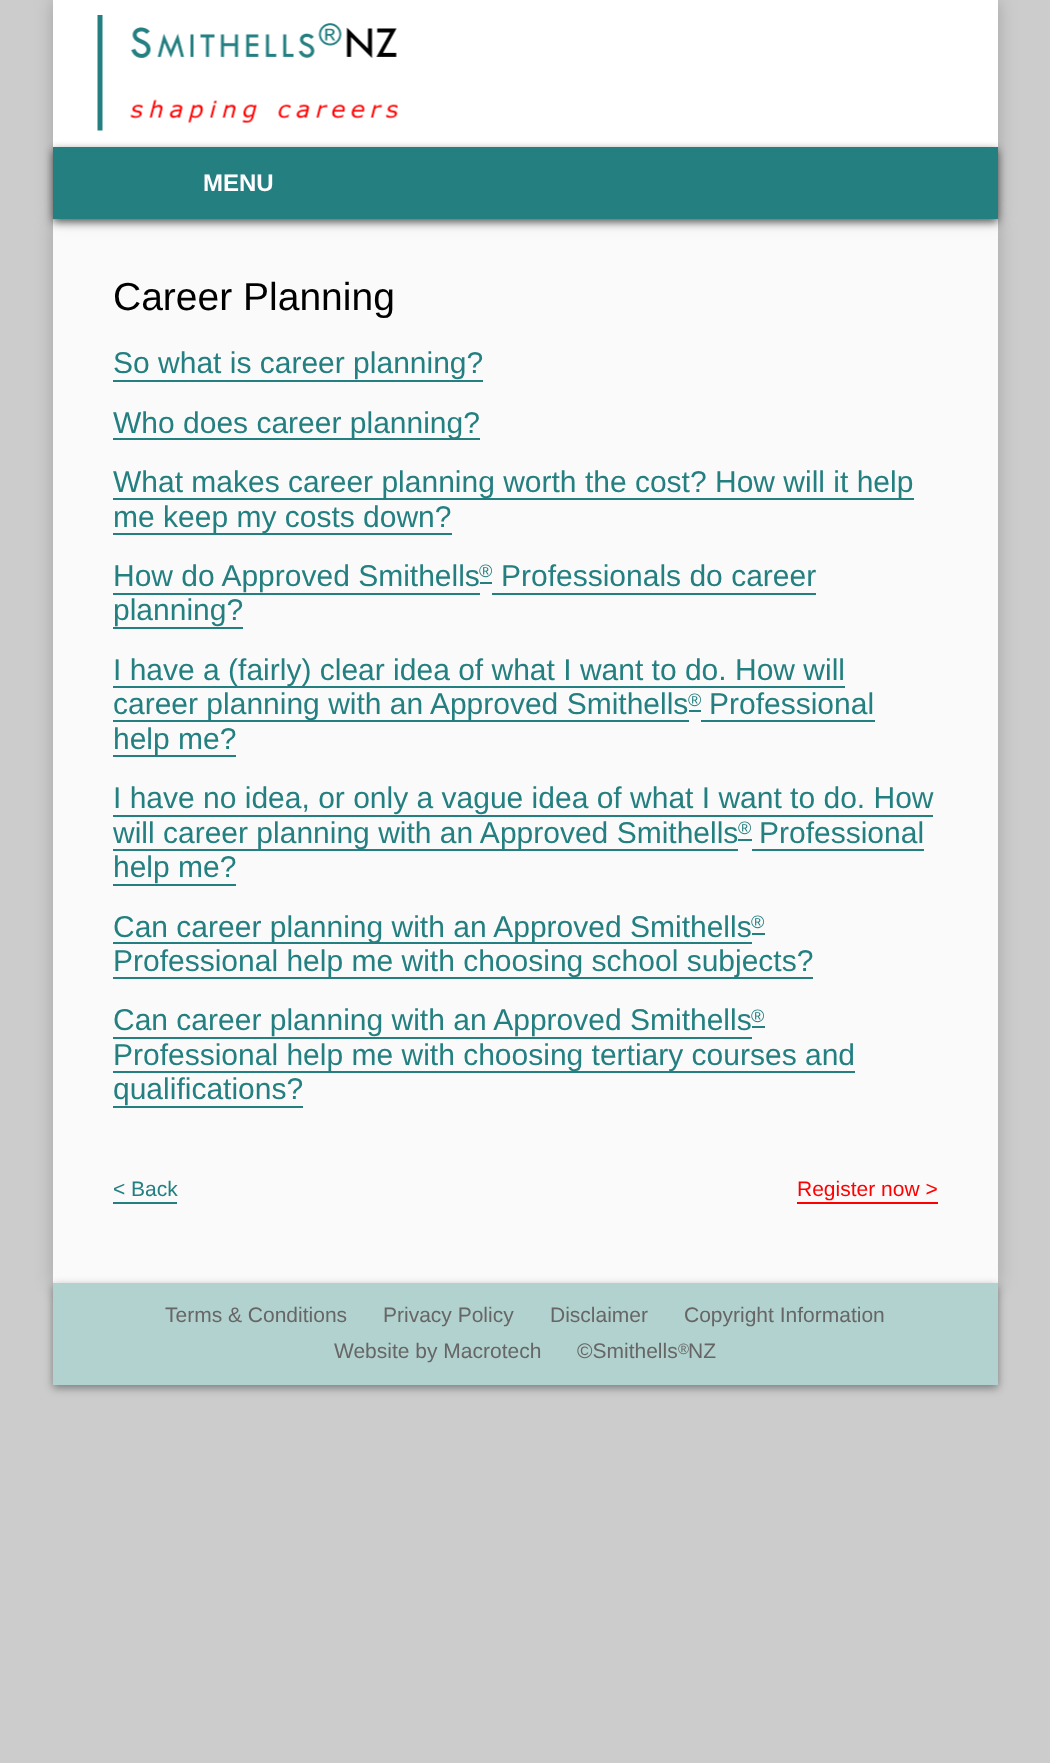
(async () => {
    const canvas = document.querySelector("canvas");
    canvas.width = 1050;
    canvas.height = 1763;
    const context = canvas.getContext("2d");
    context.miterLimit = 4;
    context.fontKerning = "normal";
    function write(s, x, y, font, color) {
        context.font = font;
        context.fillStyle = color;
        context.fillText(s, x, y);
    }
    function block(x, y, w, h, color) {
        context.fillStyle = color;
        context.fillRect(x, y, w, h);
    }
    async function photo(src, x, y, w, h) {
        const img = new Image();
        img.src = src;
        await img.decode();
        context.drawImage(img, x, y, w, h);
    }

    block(0, 0, 1050, 1763, "rgb(204, 204, 204)");
    context.save();
    context.beginPath();
    context.moveTo(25, 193);
    context.lineTo(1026, 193);
    context.lineTo(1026, 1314);
    context.lineTo(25, 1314);
    context.closePath();
    context.moveTo(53, 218);
    context.lineTo(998, 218);
    context.lineTo(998, 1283);
    context.lineTo(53, 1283);
    context.closePath();
    context.clip("evenodd");
    context.fillStyle = "rgba(0, 0, 0, 0.2)";
    context.filter = "blur(9px)";
    context.beginPath();
    context.rect(53, 221, 945, 1065);
    context.fill();
    context.filter = "none";
    context.restore();
    block(53, 219, 945, 1064, "rgba(255, 255, 255, 0.9)");
    context.fillStyle = "rgba(0, 0, 0, 0.2)";
    context.filter = "blur(9px)";
    context.beginPath();
    context.rect(53, 0, 945, 218);
    context.fill();
    context.filter = "none";
    block(53, 0, 945, 147, "rgb(255, 255, 255)");
    await photo("media/1.png", 97, 15, 301, 116);
    context.fillStyle = "rgba(0, 0, 0, 0.6)";
    context.filter = "blur(4.5px)";
    context.beginPath();
    context.rect(53, 150, 945, 72);
    context.fill();
    context.filter = "none";
    block(53, 147, 945, 72, "rgb(36, 127, 128)");
    write("MENU", 203, 191, "bold 24px Liberation Sans", "rgb(255, 255, 255)");
    write("Career Planning", 113, 310, "39px Liberation Sans", "rgb(0, 0, 0)");
    write("So what is career planning?", 113, 373, "30px Liberation Sans", "rgb(36, 127, 128)");
    block(113, 380, 370, 2, "rgb(36, 127, 128)");
    block(113, 438, 367, 2, "rgb(36, 127, 128)");
    write("Who does career planning?", 113, 433, "30px Liberation Sans", "rgb(36, 127, 128)");
    block(113, 498, 801, 2, "rgb(36, 127, 128)");
    write("What makes career planning worth the cost? How will it help", 113, 492, "30px Liberation Sans", "rgb(36, 127, 128)");
    block(113, 533, 339, 2, "rgb(36, 127, 128)");
    write("me keep my costs down?", 113, 527, "30px Liberation Sans", "rgb(36, 127, 128)");
    write("How do Approved Smithells", 113, 586, "30px Liberation Sans", "rgb(36, 127, 128)");
    block(113, 593, 367, 2, "rgb(36, 127, 128)");
    block(480, 582, 12, 2, "rgb(36, 127, 128)");
    write("®", 479, 577, "18px Liberation Sans", "rgb(36, 127, 128)");
    write("Professionals do career", 501, 586, "30px Liberation Sans", "rgb(36, 127, 128)");
    block(492, 593, 324, 2, "rgb(36, 127, 128)");
    write("planning?", 113, 620, "30px Liberation Sans", "rgb(36, 127, 128)");
    block(113, 627, 130, 2, "rgb(36, 127, 128)");
    block(113, 686, 732, 2, "rgb(36, 127, 128)");
    write("I have a (fairly) clear idea of what I want to do. How will", 113, 680, "30px Liberation Sans", "rgb(36, 127, 128)");
    block(113, 720, 576, 2, "rgb(36, 127, 128)");
    write("career planning with an Approved Smithells", 113, 714, "30px Liberation Sans", "rgb(36, 127, 128)");
    block(689, 710, 12, 2, "rgb(36, 127, 128)");
    write("®", 688, 706, "18px Liberation Sans", "rgb(36, 127, 128)");
    write("Professional", 709, 714, "30px Liberation Sans", "rgb(36, 127, 128)");
    block(701, 720, 174, 2, "rgb(36, 127, 128)");
    block(113, 755, 123, 2, "rgb(36, 127, 128)");
    write("help me?", 113, 749, "30px Liberation Sans", "rgb(36, 127, 128)");
    write("I have no idea, or only a vague idea of what I want to do. How", 113, 808, "30px Liberation Sans", "rgb(36, 127, 128)");
    block(113, 849, 625, 2, "rgb(36, 127, 128)");
    write("will career planning with an Approved Smithells", 113, 843, "30px Liberation Sans", "rgb(36, 127, 128)");
    block(738, 839, 14, 2, "rgb(36, 127, 128)");
    write("®", 738, 834, "18px Liberation Sans", "rgb(36, 127, 128)");
    block(113, 815, 820, 2, "rgb(36, 127, 128)");
    write("Professional", 759, 843, "30px Liberation Sans", "rgb(36, 127, 128)");
    block(752, 849, 172, 2, "rgb(36, 127, 128)");
    write("help me?", 113, 877, "30px Liberation Sans", "rgb(36, 127, 128)");
    block(113, 884, 123, 2, "rgb(36, 127, 128)");
    block(113, 942, 639, 2, "rgb(36, 127, 128)");
    write("Can career planning with an Approved Smithells", 113, 937, "30px Liberation Sans", "rgb(36, 127, 128)");
    block(752, 933, 13, 2, "rgb(36, 127, 128)");
    write("®", 751, 928, "18px Liberation Sans", "rgb(36, 127, 128)");
    block(113, 977, 700, 2, "rgb(36, 127, 128)");
    write("Professional help me with choosing school subjects?", 113, 971, "30px Liberation Sans", "rgb(36, 127, 128)");
    write("Can career planning with an Approved Smithells", 113, 1030, "30px Liberation Sans", "rgb(36, 127, 128)");
    block(113, 1037, 639, 2, "rgb(36, 127, 128)");
    block(752, 1026, 13, 2, "rgb(36, 127, 128)");
    write("®", 751, 1022, "18px Liberation Sans", "rgb(36, 127, 128)");
    block(113, 1071, 742, 2, "rgb(36, 127, 128)");
    write("Professional help me with choosing tertiary courses and", 113, 1065, "30px Liberation Sans", "rgb(36, 127, 128)");
    write("qualifications?", 113, 1099, "30px Liberation Sans", "rgb(36, 127, 128)");
    block(113, 1106, 190, 2, "rgb(36, 127, 128)");
    write("< Back", 113, 1196, "21px Liberation Sans", "rgb(36, 127, 128)");
    block(113, 1202, 64, 2, "rgb(36, 127, 128)");
    write("Register now >", 797, 1196, "21px Liberation Sans", "rgb(255, 0, 0)");
    block(797, 1202, 141, 2, "rgb(255, 0, 0)");
    context.fillStyle = "rgba(0, 0, 0, 0.4)";
    context.filter = "blur(4.5px)";
    context.beginPath();
    context.rect(53, 1286, 945, 102);
    context.fill();
    context.filter = "none";
    block(53, 1283, 945, 102, "rgb(178, 210, 207)");
    write("Terms & Conditions", 165, 1322, "21px Liberation Sans", "rgb(102, 102, 102)");
    write("Privacy Policy", 383, 1322, "21px Liberation Sans", "rgb(102, 102, 102)");
    write("Disclaimer", 550, 1322, "21px Liberation Sans", "rgb(102, 102, 102)");
    write("Copyright Information", 684, 1322, "21px Liberation Sans", "rgb(102, 102, 102)");
    write("Website by Macrotech", 334, 1358, "21px Liberation Sans", "rgb(102, 102, 102)");
    write("©Smithells", 577, 1358, "21px Liberation Sans", "rgb(102, 102, 102)");
    write("®", 678, 1354, "15px Liberation Sans", "rgb(102, 102, 102)");
    write("NZ", 688, 1358, "21px Liberation Sans", "rgb(102, 102, 102)");
})();
